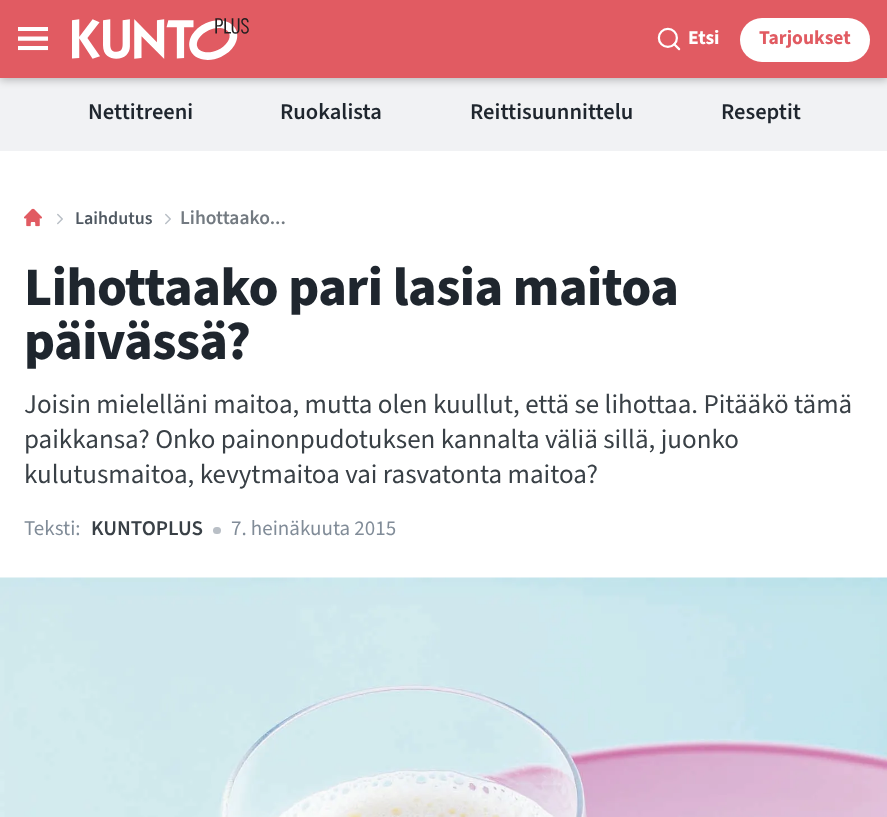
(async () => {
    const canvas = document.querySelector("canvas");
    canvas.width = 887;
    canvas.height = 817;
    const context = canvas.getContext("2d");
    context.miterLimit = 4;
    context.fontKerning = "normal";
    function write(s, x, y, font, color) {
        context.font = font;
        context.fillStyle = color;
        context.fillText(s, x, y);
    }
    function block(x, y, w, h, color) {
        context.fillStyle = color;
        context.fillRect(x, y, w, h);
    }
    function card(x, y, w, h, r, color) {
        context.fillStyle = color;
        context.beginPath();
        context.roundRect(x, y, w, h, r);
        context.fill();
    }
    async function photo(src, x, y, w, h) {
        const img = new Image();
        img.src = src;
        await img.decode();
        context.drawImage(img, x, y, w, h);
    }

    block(0, 0, 887, 817, "rgb(255, 255, 255)");
    block(0, 78, 887, 73, "rgb(241, 242, 244)");
    context.fillStyle = "rgba(0, 0, 0, 0.25)";
    context.filter = "blur(4px)";
    context.beginPath();
    context.rect(0, 2, 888, 78);
    context.fill();
    context.filter = "none";
    block(0, 0, 887, 78, "rgb(225, 91, 98)");
    await photo("media/1.png", 18, 27, 30, 24);
    await photo("media/2.png", 72, 18, 177, 42);
    await photo("media/3.png", 657, 27, 24, 24);
    write("Etsi", 688, 44, "bold 19.5px 'Source Sans 3'", "rgb(255, 255, 255)");
    card(740, 18, 130, 44, 22, "rgb(255, 255, 255)");
    write("Tarjoukset", 759, 44, "bold 19.5px 'Source Sans 3'", "rgb(225, 91, 98)");
    write("Nettitreeni", 88, 119, "600 22.5px 'Source Sans 3'", "rgb(31, 38, 46)");
    write("Ruokalista", 280, 119, "600 22.5px 'Source Sans 3'", "rgb(31, 38, 46)");
    write("Reittisuunnittelu", 470, 119, "600 22.5px 'Source Sans 3'", "rgb(31, 38, 46)");
    write("Reseptit", 721, 119, "600 22.5px 'Source Sans 3'", "rgb(31, 38, 46)");
    await photo("media/4.png", 24, 208, 18, 19);
    await photo("media/5.png", 57, 213, 6, 12);
    write("Laihdutus", 75, 224, "600 18px 'Source Sans 3'", "rgb(80, 89, 98)");
    await photo("media/5.png", 165, 213, 6, 12);
    write("Lihottaako...", 180, 224, "600 19.5px 'Source Sans 3'", "rgb(115, 122, 129)");
    context.letterSpacing = "-0.55px";
    write("Lihottaako pari lasia maitoa", 24, 305, "800 54px 'Source Sans 3'", "rgb(31, 38, 46)");
    write("päivässä?", 24, 359, "800 54px 'Source Sans 3'", "rgb(31, 38, 46)");
    context.letterSpacing = "0px";
    write("Joisin mielelläni maitoa, mutta olen kuullut, että se lihottaa. Pitääkö tämä", 24, 413, "27px 'Source Sans 3'", "rgb(57, 64, 70)");
    write("paikkansa? Onko painonpudotuksen kannalta väliä sillä, juonko", 24, 448, "27px 'Source Sans 3'", "rgb(57, 64, 70)");
    write("kulutusmaitoa, kevytmaitoa vai rasvatonta maitoa?", 24, 483, "27px 'Source Sans 3'", "rgb(57, 64, 70)");
    write("Teksti:", 24, 535, "21px 'Source Sans 3'", "rgb(129, 140, 152)");
    write("KUNTOPLUS", 91, 535, "600 21px 'Source Sans 3'", "rgb(57, 64, 70)");
    card(213, 527, 8, 7, 3.5, "rgb(185, 191, 198)");
    write("7. heinäkuuta 2015", 231, 535, "21px 'Source Sans 3'", "rgb(129, 140, 152)");
    await photo("media/6.png", 0, 577, 887, 240);
})();
